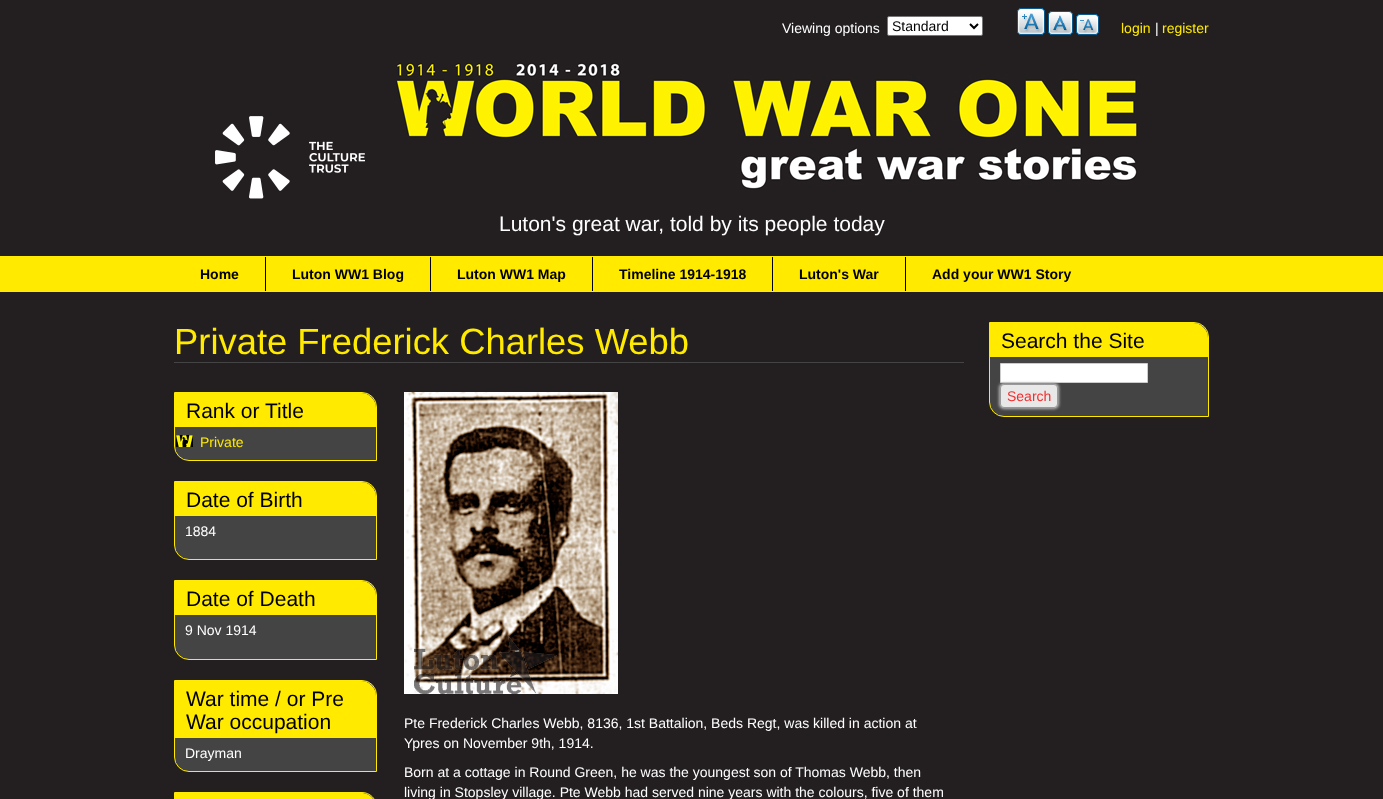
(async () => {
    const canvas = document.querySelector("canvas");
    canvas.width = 1383;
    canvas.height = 799;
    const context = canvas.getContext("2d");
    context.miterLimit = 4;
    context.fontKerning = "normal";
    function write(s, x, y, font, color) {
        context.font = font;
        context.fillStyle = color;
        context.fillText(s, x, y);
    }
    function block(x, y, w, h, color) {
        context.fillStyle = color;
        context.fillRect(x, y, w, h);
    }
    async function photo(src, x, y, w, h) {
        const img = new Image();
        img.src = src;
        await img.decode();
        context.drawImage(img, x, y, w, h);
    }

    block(0, 0, 1383, 799, "rgb(35, 31, 32)");
    write("Viewing options", 782, 33, "14px Liberation Sans", "rgb(255, 255, 255)");
    context.beginPath();
    context.roundRect(887.5, 16.5, 95, 19, 1.5);
    context.fill();
    context.strokeStyle = "rgb(118, 118, 118)";
    context.stroke();
    context.beginPath();
    context.moveTo(970, 24);
    context.lineTo(974, 28);
    context.lineTo(978, 24);
    context.strokeStyle = "rgb(0, 0, 0)";
    context.lineWidth = 2;
    context.stroke();
    write("Standard", 892, 31, "14px Liberation Sans", "rgb(0, 0, 0)");
    await photo("media/1.png", 1017, 8, 28, 27);
    await photo("media/2.png", 1048, 11, 25, 24);
    await photo("media/3.png", 1076, 14, 23, 21);
    write("login", 1121, 33, "14px Liberation Sans", "rgb(255, 234, 0)");
    write("|", 1155, 33, "14px Liberation Sans", "rgb(255, 255, 255)");
    write("register", 1162, 33, "14px Liberation Sans", "rgb(255, 234, 0)");
    await photo("media/4.png", 215, 116, 150, 83);
    await photo("media/5.png", 396, 60, 744, 130);
    write("Luton's great war, told by its people today", 499, 231, "21px Liberation Sans", "rgb(255, 255, 255)");
    block(0, 256, 1383, 36, "rgb(255, 234, 0)");
    block(265, 257, 1, 34, "rgb(0, 0, 0)");
    write("Home", 200, 279, "bold 14px Liberation Sans", "rgb(0, 0, 0)");
    block(430, 257, 1, 34, "rgb(0, 0, 0)");
    write("Luton WW1 Blog", 292, 279, "bold 14px Liberation Sans", "rgb(0, 0, 0)");
    block(592, 257, 1, 34, "rgb(0, 0, 0)");
    write("Luton WW1 Map", 457, 279, "bold 14px Liberation Sans", "rgb(0, 0, 0)");
    block(772, 257, 1, 34, "rgb(0, 0, 0)");
    write("Timeline 1914-1918", 619, 279, "bold 14px Liberation Sans", "rgb(0, 0, 0)");
    block(905, 257, 1, 34, "rgb(0, 0, 0)");
    write("Luton's War", 799, 279, "bold 14px Liberation Sans", "rgb(0, 0, 0)");
    write("Add your WW1 Story", 932, 279, "bold 14px Liberation Sans", "rgb(0, 0, 0)");
    block(174, 362, 790, 1, "rgb(68, 68, 68)");
    write("Private Frederick Charles Webb", 174, 354, "36.4px Liberation Sans", "rgb(255, 234, 0)");
    context.fillStyle = "rgb(68, 68, 68)";
    context.beginPath();
    context.roundRect(174.5, 392.5, 202, 68, [0, 14.5, 0, 14.5]);
    context.fill();
    context.strokeStyle = "rgb(255, 234, 0)";
    context.lineWidth = 1;
    context.stroke();
    context.fillStyle = "rgb(255, 234, 0)";
    context.beginPath();
    context.roundRect(175, 393, 201, 34, [0, 15, 0, 0]);
    context.fill();
    write("Rank or Title", 186, 418, "21px Liberation Sans", "rgb(0, 0, 0)");
    await photo("media/6.png", 176, 435, 17, 12);
    write("Private", 200, 447, "14px Liberation Sans", "rgb(255, 234, 0)");
    context.fillStyle = "rgb(68, 68, 68)";
    context.beginPath();
    context.roundRect(174.5, 481.5, 202, 78, [0, 14.5, 0, 14.5]);
    context.fill();
    context.stroke();
    context.fillStyle = "rgb(255, 234, 0)";
    context.beginPath();
    context.roundRect(175, 482, 201, 34, [0, 15, 0, 0]);
    context.fill();
    write("Date of Birth", 186, 507, "21px Liberation Sans", "rgb(0, 0, 0)");
    write("1884", 185, 536, "14px Liberation Sans", "rgb(255, 255, 255)");
    context.fillStyle = "rgb(68, 68, 68)";
    context.beginPath();
    context.roundRect(174.5, 580.5, 202, 79, [0, 14.5, 0, 14.5]);
    context.fill();
    context.stroke();
    context.fillStyle = "rgb(255, 234, 0)";
    context.beginPath();
    context.roundRect(175, 581, 201, 34, [0, 15, 0, 0]);
    context.fill();
    write("Date of Death", 186, 606, "21px Liberation Sans", "rgb(0, 0, 0)");
    write("9 Nov 1914", 185, 635, "14px Liberation Sans", "rgb(255, 255, 255)");
    context.fillStyle = "rgb(68, 68, 68)";
    context.beginPath();
    context.roundRect(174.5, 680.5, 202, 91, [0, 14.5, 0, 14.5]);
    context.fill();
    context.stroke();
    context.fillStyle = "rgb(255, 234, 0)";
    context.beginPath();
    context.roundRect(175, 681, 201, 57, [0, 15, 0, 0]);
    context.fill();
    write("War time / or Pre", 186, 706, "21px Liberation Sans", "rgb(0, 0, 0)");
    write("War occupation", 186, 729, "21px Liberation Sans", "rgb(0, 0, 0)");
    write("Drayman", 185, 758, "14px Liberation Sans", "rgb(255, 255, 255)");
    context.fillStyle = "rgb(68, 68, 68)";
    context.beginPath();
    context.moveTo(174.5, 792.5);
    context.lineTo(362, 792.5);
    context.bezierCurveTo(370, 792.5, 376.5, 799, 376.5, 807);
    context.lineTo(376.5, 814.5);
    context.lineTo(189, 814.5);
    context.bezierCurveTo(181, 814.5, 174.5, 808, 174.5, 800);
    context.closePath();
    context.fill();
    context.stroke();
    context.fillStyle = "rgb(255, 234, 0)";
    context.beginPath();
    context.moveTo(175, 793);
    context.lineTo(361, 793);
    context.bezierCurveTo(369.5, 793, 376, 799.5, 376, 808);
    context.lineTo(376, 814);
    context.lineTo(175, 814);
    context.closePath();
    context.fill();
    await photo("media/7.png", 404, 392, 214, 302);
    write("Pte Frederick Charles Webb, 8136, 1st Battalion, Beds Regt, was killed in action at", 404, 728, "14px Liberation Sans", "rgb(255, 255, 255)");
    write("Ypres on November 9th, 1914.", 404, 748, "14px Liberation Sans", "rgb(255, 255, 255)");
    write("Born at a cottage in Round Green, he was the youngest son of Thomas Webb, then", 404, 777, "14px Liberation Sans", "rgb(255, 255, 255)");
    write("living in Stopsley village. Pte Webb had served nine years with the colours, five of them", 404, 797, "14px Liberation Sans", "rgb(255, 255, 255)");
    context.fillStyle = "rgb(68, 68, 68)";
    context.beginPath();
    context.roundRect(989.5, 322.5, 219, 94, [0, 14.5, 0, 14.5]);
    context.fill();
    context.stroke();
    context.fillStyle = "rgb(255, 234, 0)";
    context.beginPath();
    context.roundRect(990, 323, 218, 34, [0, 15, 0, 0]);
    context.fill();
    write("Search the Site", 1001, 348, "21px Liberation Sans", "rgb(0, 0, 0)");
    context.fillStyle = "rgb(255, 255, 255)";
    context.beginPath();
    context.rect(1000.5, 363.5, 147, 19);
    context.fill();
    context.strokeStyle = "rgb(204, 204, 204)";
    context.stroke();
    context.fillStyle = "rgb(187, 187, 187)";
    context.filter = "blur(1.5px)";
    context.beginPath();
    context.roundRect(999, 383, 60, 26, 5);
    context.fill();
    context.filter = "none";
    context.fillStyle = "rgb(232, 232, 232)";
    context.beginPath();
    context.roundRect(1000.5, 384.5, 57, 23, 3.5);
    context.fill();
    context.strokeStyle = "rgb(153, 153, 153)";
    context.stroke();
    write("Search", 1007, 401, "14px Liberation Sans", "rgb(245, 44, 44)");
})();
